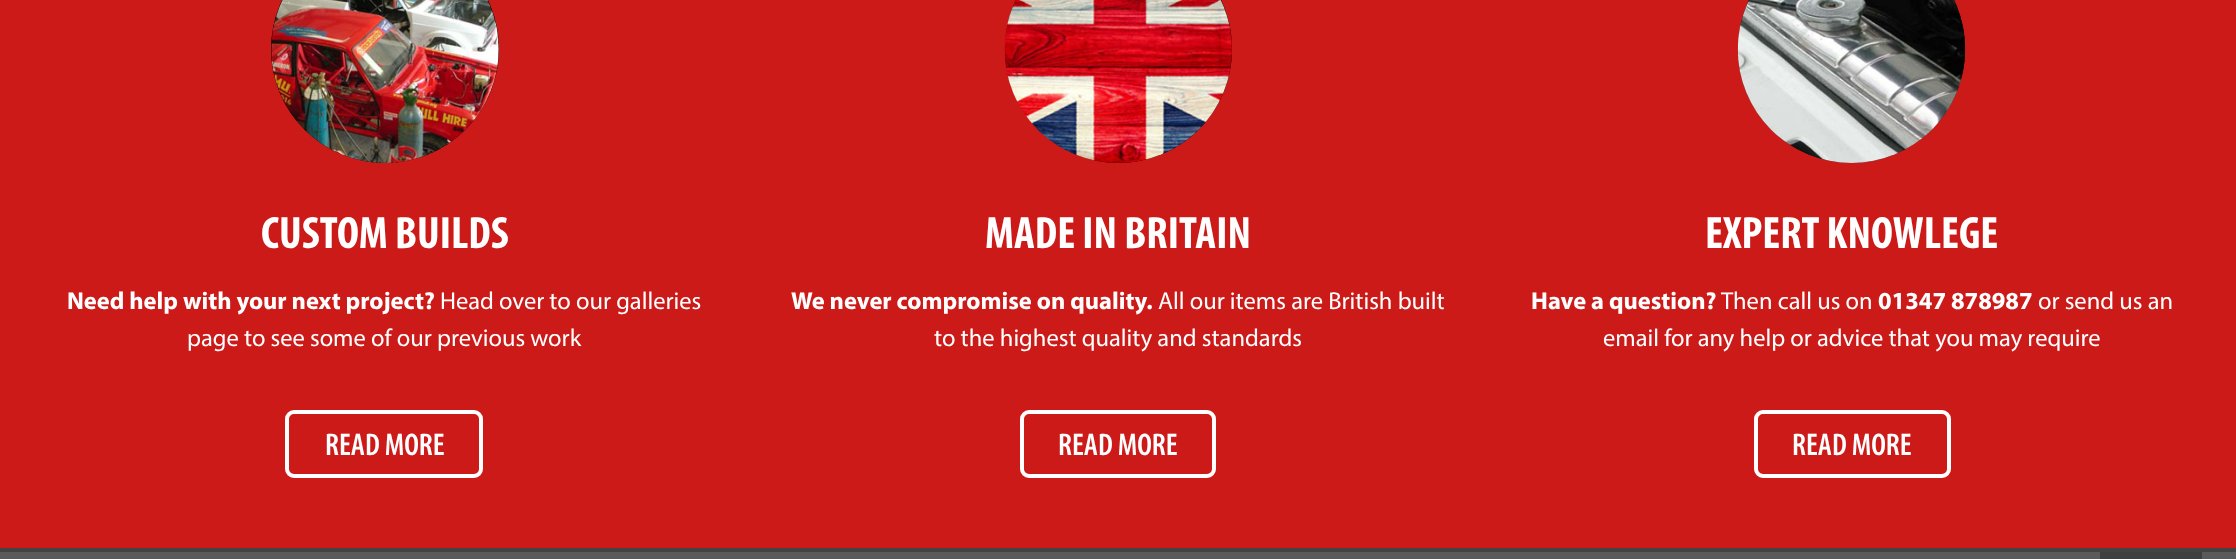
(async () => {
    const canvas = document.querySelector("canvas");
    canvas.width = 2236;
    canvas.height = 559;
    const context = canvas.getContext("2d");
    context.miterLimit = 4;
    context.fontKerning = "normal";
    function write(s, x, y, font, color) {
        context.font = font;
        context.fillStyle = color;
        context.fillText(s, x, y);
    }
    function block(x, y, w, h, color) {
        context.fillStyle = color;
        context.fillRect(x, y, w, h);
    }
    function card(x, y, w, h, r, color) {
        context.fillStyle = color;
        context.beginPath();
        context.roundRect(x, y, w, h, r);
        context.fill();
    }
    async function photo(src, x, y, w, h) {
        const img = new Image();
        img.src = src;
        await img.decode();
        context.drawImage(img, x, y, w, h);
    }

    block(0, 0, 2236, 559, "rgb(90, 90, 90)");
    block(0, 0, 2236, 548, "rgb(204, 26, 25)");
    block(0, 548, 2236, 4, "rgb(67, 67, 67)");
    context.fillStyle = "rgb(0, 0, 0)";
    context.beginPath();
    context.arc(385, 49, 114, 0, Math.PI * 2);
    context.fill();
    await photo("media/1.png", 271, 0, 228, 163);
    write("CUSTOM BUILDS", 261, 248, "bold 45.5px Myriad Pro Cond", "rgb(255, 255, 255)");
    write("Need help with your next project?", 67, 309, "bold 24.5px Myriad", "rgb(255, 255, 255)");
    write("Head over to our galleries", 440, 309, "24.5px Myriad", "rgb(255, 255, 255)");
    write("page to see some of our previous work", 187, 346, "24.5px Myriad", "rgb(255, 255, 255)");
    context.beginPath();
    context.roundRect(287, 412, 194, 64, 7);
    context.strokeStyle = "rgb(255, 255, 255)";
    context.lineWidth = 4;
    context.stroke();
    write("READ MORE", 325, 455, "600 31.5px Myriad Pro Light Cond", "rgb(255, 255, 255)");
    card(1005, -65, 227, 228, 113.5, "rgb(0, 0, 0)");
    await photo("media/2.png", 1004, 0, 228, 163);
    write("MADE IN BRITAIN", 985, 248, "bold 45.5px Myriad Pro Cond", "rgb(255, 255, 255)");
    write("We never compromise on quality.", 791, 309, "bold 24.5px Myriad", "rgb(255, 255, 255)");
    write("All our items are British built", 1158, 309, "24.5px Myriad", "rgb(255, 255, 255)");
    write("to the highest quality and standards", 934, 346, "24.5px Myriad", "rgb(255, 255, 255)");
    context.beginPath();
    context.roundRect(1022, 412, 192, 64, 7);
    context.stroke();
    write("READ MORE", 1058, 455, "600 31.5px Myriad Pro Light Cond", "rgb(255, 255, 255)");
    card(1738, -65, 227, 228, 113.5, "rgb(0, 0, 0)");
    await photo("media/3.png", 1737, 0, 229, 163);
    write("EXPERT KNOWLEGE", 1705, 248, "bold 45.5px Myriad Pro Cond", "rgb(255, 255, 255)");
    write("Have a question?", 1531, 309, "bold 24.5px Myriad", "rgb(255, 255, 255)");
    write("Then call us on", 1721, 309, "24.5px Myriad", "rgb(255, 255, 255)");
    write("01347 878987", 1878, 309, "bold 24.5px Myriad", "rgb(255, 255, 255)");
    write("or send us an", 2038, 309, "24.5px Myriad", "rgb(255, 255, 255)");
    write("email for any help or advice that you may require", 1603, 346, "24.5px Myriad", "rgb(255, 255, 255)");
    context.beginPath();
    context.roundRect(1756, 412, 193, 64, 7);
    context.stroke();
    write("READ MORE", 1792, 455, "600 31.5px Myriad Pro Light Cond", "rgb(255, 255, 255)");
    block(2100, 552, 102, 7, "rgb(63, 63, 63)");
})();
